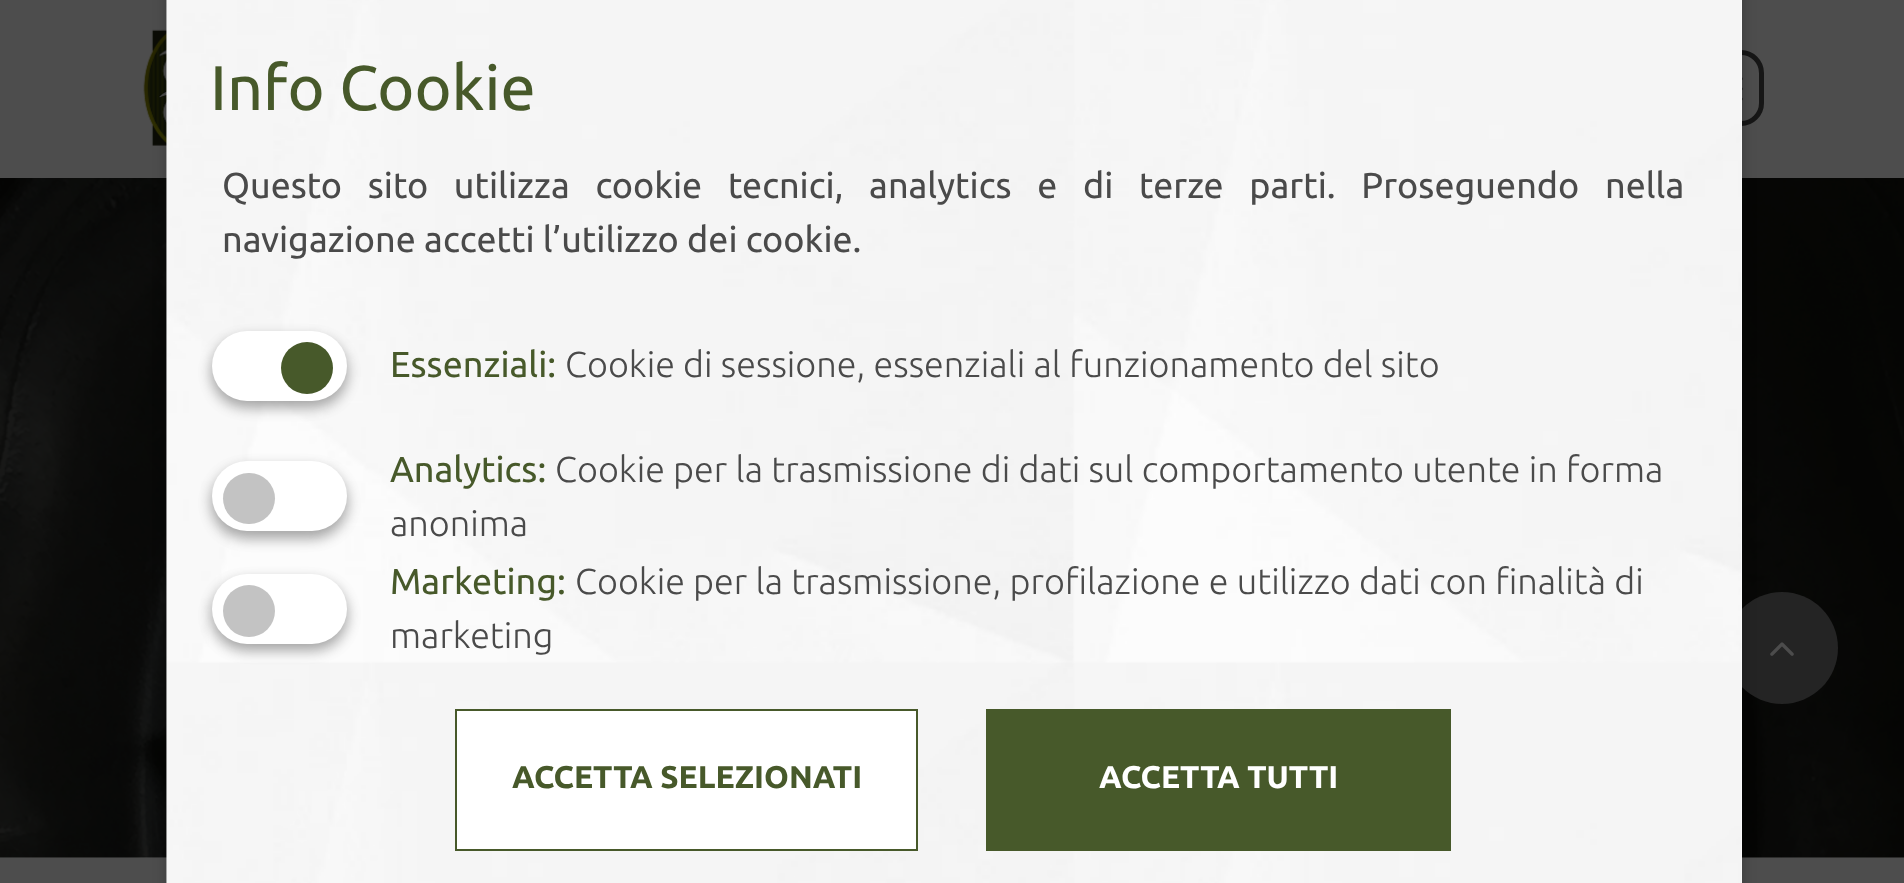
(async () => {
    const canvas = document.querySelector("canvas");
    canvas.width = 1904;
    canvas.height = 883;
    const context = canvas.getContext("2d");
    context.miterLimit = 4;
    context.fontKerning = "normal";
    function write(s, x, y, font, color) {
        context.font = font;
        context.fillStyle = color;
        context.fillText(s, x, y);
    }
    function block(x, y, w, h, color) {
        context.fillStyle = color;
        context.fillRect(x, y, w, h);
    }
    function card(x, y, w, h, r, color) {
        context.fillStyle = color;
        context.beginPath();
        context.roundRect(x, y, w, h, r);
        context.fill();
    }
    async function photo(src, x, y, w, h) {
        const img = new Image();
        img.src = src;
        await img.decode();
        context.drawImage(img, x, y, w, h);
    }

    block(0, 0, 1904, 883, "rgb(77, 77, 77)");
    await photo("media/1.png", 143, 29, 24, 117);
    context.beginPath();
    context.roundRect(1690.5, 52.5, 71, 71, 20.5);
    context.strokeStyle = "rgb(22, 22, 22)";
    context.lineWidth = 5;
    context.stroke();
    await photo("media/2.png", 1742, 77, 1, 24);
    await photo("media/3.png", 0, 178, 1904, 680);
    context.fillStyle = "rgb(36, 36, 36)";
    context.beginPath();
    context.arc(1782, 648, 56, 0, Math.PI * 2);
    context.fill();
    context.fillStyle = "rgba(0, 0, 0, 0.23)";
    context.filter = "blur(7px)";
    context.beginPath();
    context.rect(167, -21, 1575, 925);
    context.fill();
    context.filter = "none";
    block(167, 0, 1575, 883, "rgb(254, 254, 254)");
    await photo("media/4.png", 166, 0, 1576, 883);
    write("Info Cookie", 210, 110, "63px Ubuntu", "rgb(71, 89, 42)");
    context.wordSpacing = "17.4px";
    write("Questo sito utilizza cookie tecnici, analytics e di terze parti. Proseguendo nella", 222, 198, "36px Ubuntu", "rgb(74, 74, 74)");
    context.wordSpacing = "0px";
    write("navigazione accetti l’utilizzo dei cookie.", 222, 252, "36px Ubuntu", "rgb(74, 74, 74)");
    context.fillStyle = "rgba(0, 0, 0, 0.23)";
    context.filter = "blur(7px)";
    context.beginPath();
    context.roundRect(212, 338, 135, 69, 34.5);
    context.fill();
    context.filter = "none";
    context.fillStyle = "rgba(0, 0, 0, 0.16)";
    context.filter = "blur(7px)";
    context.beginPath();
    context.roundRect(212, 338, 135, 69, 34.5);
    context.fill();
    context.filter = "none";
    card(212, 331, 135, 70, 35, "rgb(255, 255, 255)");
    context.fillStyle = "rgb(71, 89, 42)";
    context.beginPath();
    context.arc(307, 368, 26, 0, Math.PI * 2);
    context.fill();
    write("Essenziali:", 390, 377, "36px Ubuntu", "rgb(71, 89, 42)");
    write("Cookie di sessione, essenziali al funzionamento del sito", 565, 377, "300 36px Ubuntu", "rgb(74, 74, 74)");
    context.fillStyle = "rgba(0, 0, 0, 0.23)";
    context.filter = "blur(7px)";
    context.beginPath();
    context.roundRect(212, 468, 135, 70, 35);
    context.fill();
    context.filter = "none";
    context.fillStyle = "rgba(0, 0, 0, 0.16)";
    context.filter = "blur(7px)";
    context.beginPath();
    context.roundRect(212, 468, 135, 70, 35);
    context.fill();
    context.filter = "none";
    card(212, 461, 135, 70, 35, "rgb(255, 255, 255)");
    card(223, 473, 52, 51, 25.5, "rgb(195, 195, 195)");
    write("Analytics:", 390, 482, "36px Ubuntu", "rgb(71, 89, 42)");
    write("Cookie per la trasmissione di dati sul comportamento utente in forma", 555, 482, "300 36px Ubuntu", "rgb(74, 74, 74)");
    write("anonima", 390, 536, "300 36px Ubuntu", "rgb(74, 74, 74)");
    context.fillStyle = "rgba(0, 0, 0, 0.23)";
    context.filter = "blur(7px)";
    context.beginPath();
    context.roundRect(212, 581, 135, 69, 34.5);
    context.fill();
    context.filter = "none";
    context.fillStyle = "rgba(0, 0, 0, 0.16)";
    context.filter = "blur(7px)";
    context.beginPath();
    context.roundRect(212, 581, 135, 69, 34.5);
    context.fill();
    context.filter = "none";
    card(212, 574, 135, 70, 35, "rgb(255, 255, 255)");
    context.fillStyle = "rgb(195, 195, 195)";
    context.beginPath();
    context.arc(249, 611, 26, 0, Math.PI * 2);
    context.fill();
    write("Marketing:", 390, 594, "36px Ubuntu", "rgb(71, 89, 42)");
    write("Cookie per la trasmissione, profilazione e utilizzo dati con finalità di", 575, 594, "300 36px Ubuntu", "rgb(74, 74, 74)");
    write("marketing", 390, 648, "300 36px Ubuntu", "rgb(74, 74, 74)");
    context.fillStyle = "rgb(255, 255, 255)";
    context.beginPath();
    context.rect(456, 710, 461, 140);
    context.fill();
    context.strokeStyle = "rgb(71, 89, 42)";
    context.lineWidth = 2;
    context.stroke();
    write("ACCETTA SELEZIONATI", 512, 788, "bold 31.5px Ubuntu", "rgb(71, 89, 42)");
    block(986, 709, 465, 142, "rgb(71, 89, 42)");
    write("ACCETTA TUTTI", 1099, 788, "bold 31.5px Ubuntu", "rgb(255, 255, 255)");
    await photo("media/5.png", 1770, 642, 24, 14);
})();
